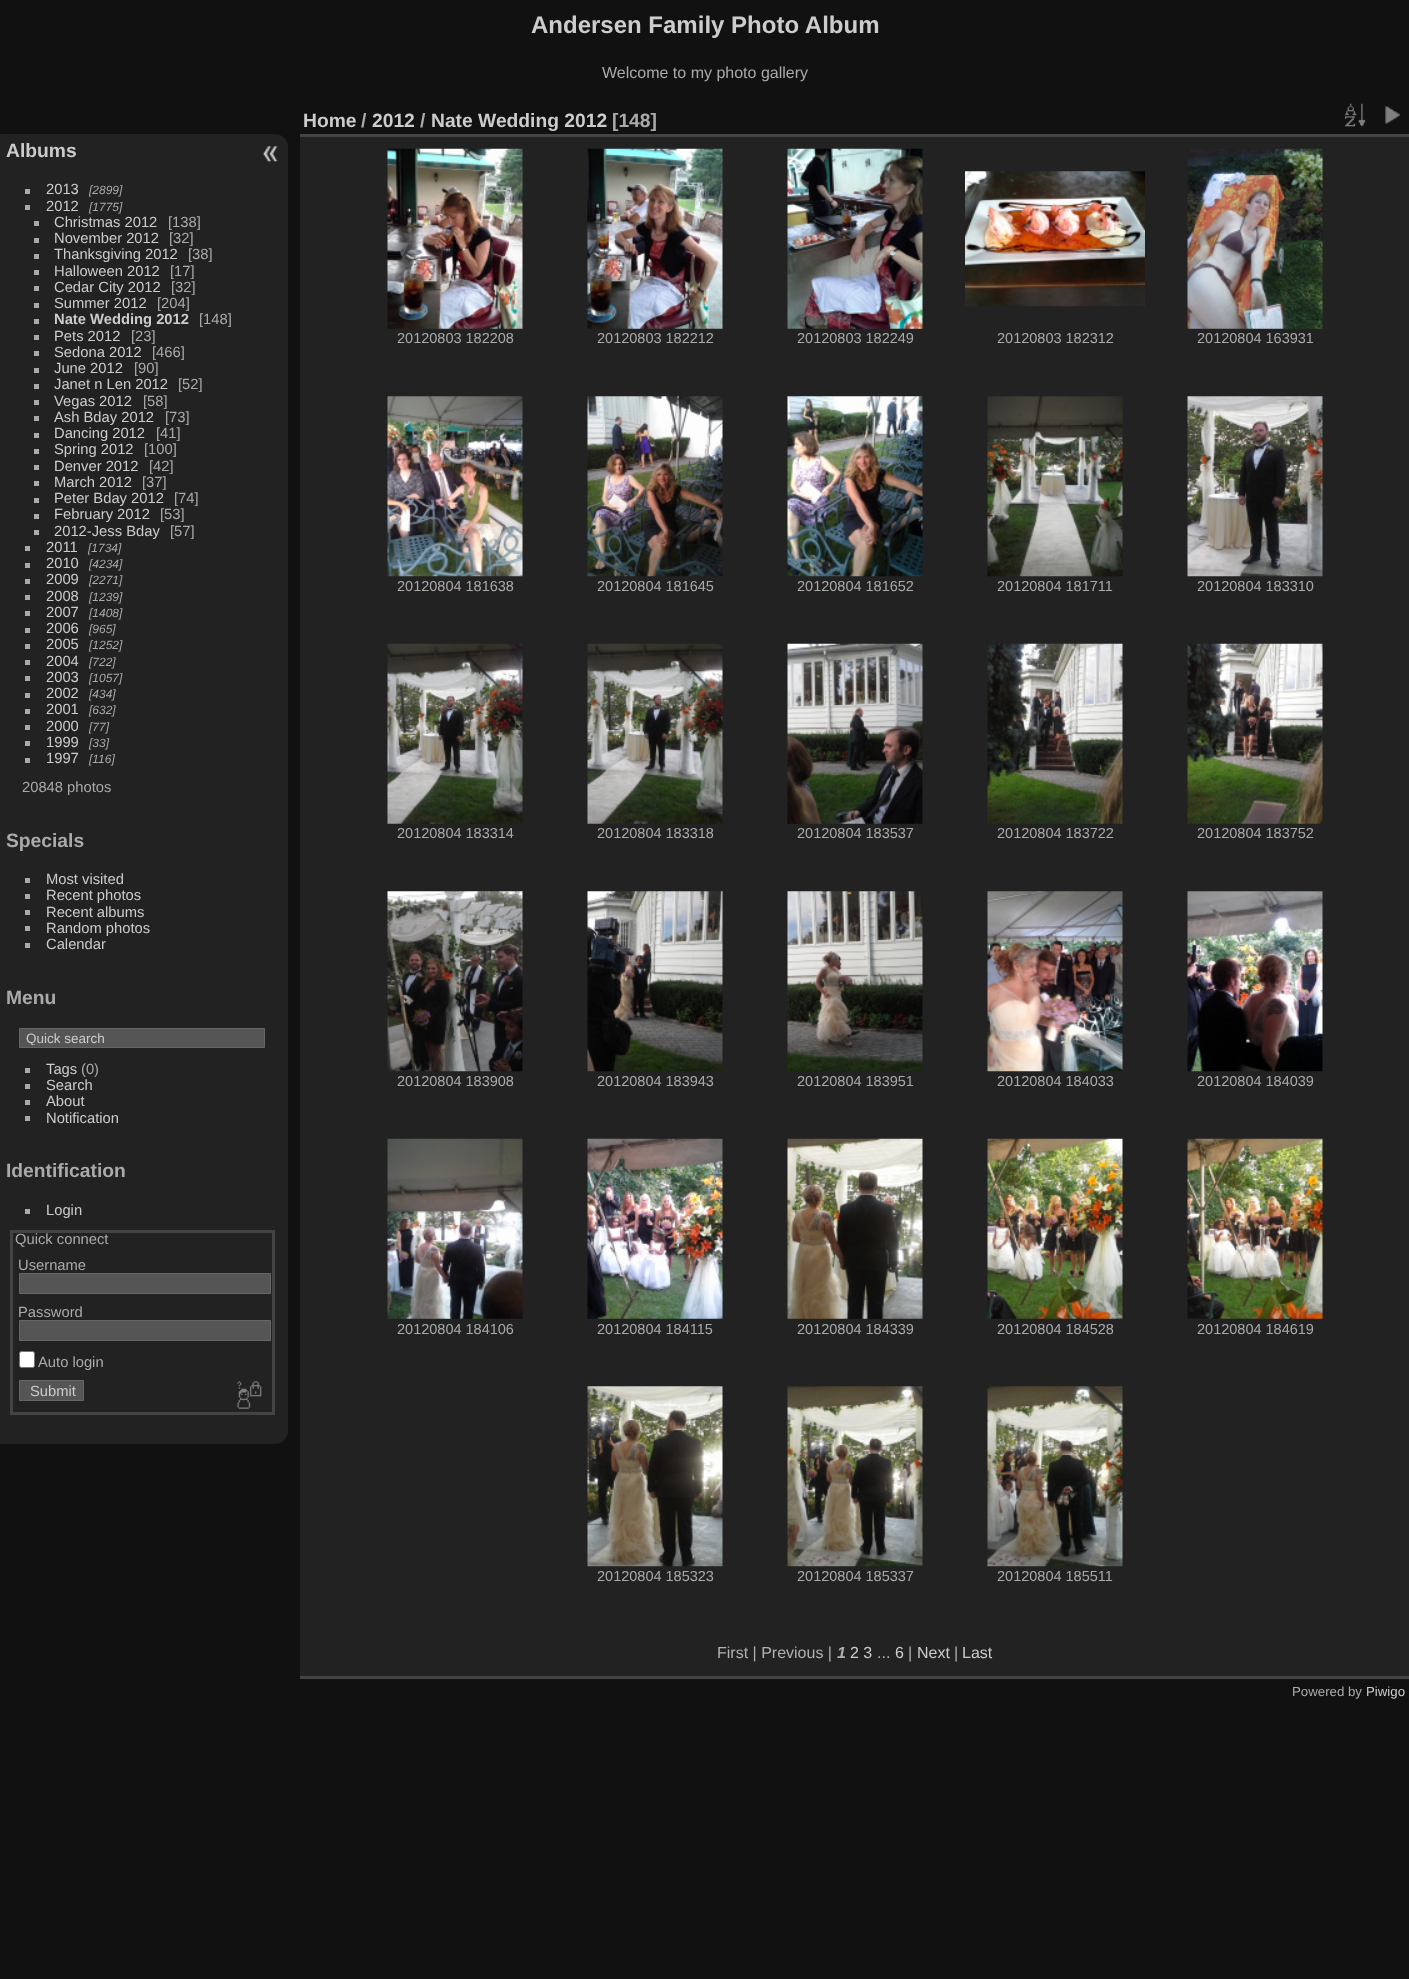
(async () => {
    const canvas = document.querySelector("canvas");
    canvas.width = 1409;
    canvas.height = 1979;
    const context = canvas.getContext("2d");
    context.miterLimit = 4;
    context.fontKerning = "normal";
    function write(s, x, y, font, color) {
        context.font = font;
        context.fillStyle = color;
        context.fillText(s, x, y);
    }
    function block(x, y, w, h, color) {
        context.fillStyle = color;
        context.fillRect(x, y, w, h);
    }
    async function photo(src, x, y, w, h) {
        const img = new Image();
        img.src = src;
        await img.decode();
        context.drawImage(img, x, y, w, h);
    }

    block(0, 0, 1409, 1979, "rgb(17, 17, 17)");
    write("Andersen Family Photo Album", 531, 33, "bold 24px Liberation Sans", "rgb(204, 204, 204)");
    write("Welcome to my photo gallery", 602, 78, "16px Liberation Sans", "rgb(170, 170, 170)");
    context.fillStyle = "rgb(34, 34, 34)";
    context.beginPath();
    context.roundRect(0, 134, 288, 1310, [0, 13, 13, 0]);
    context.fill();
    write("Albums", 6, 157, "bold 19.25px Liberation Sans", "rgb(204, 204, 204)");
    block(25, 189, 5, 5, "rgb(170, 170, 170)");
    write("2013", 46, 194, "14.75px Liberation Sans", "rgb(204, 204, 204)");
    write("[2899]", 89, 194, "italic 12px Liberation Sans", "rgb(170, 170, 170)");
    block(25, 205, 5, 5, "rgb(170, 170, 170)");
    write("2012", 46, 211, "14.75px Liberation Sans", "rgb(204, 204, 204)");
    write("[1775]", 89, 211, "italic 12px Liberation Sans", "rgb(170, 170, 170)");
    block(34, 221, 5, 5, "rgb(170, 170, 170)");
    write("Christmas 2012", 54, 227, "14.75px Liberation Sans", "rgb(204, 204, 204)");
    write("[138]", 168, 227, "14.75px Liberation Sans", "rgb(170, 170, 170)");
    block(34, 238, 5, 5, "rgb(170, 170, 170)");
    write("November 2012", 54, 243, "14.75px Liberation Sans", "rgb(204, 204, 204)");
    write("[32]", 169, 243, "14.75px Liberation Sans", "rgb(170, 170, 170)");
    block(34, 254, 5, 5, "rgb(170, 170, 170)");
    write("Thanksgiving 2012", 54, 259, "14.75px Liberation Sans", "rgb(204, 204, 204)");
    write("[38]", 188, 259, "14.75px Liberation Sans", "rgb(170, 170, 170)");
    block(34, 270, 5, 5, "rgb(170, 170, 170)");
    write("Halloween 2012", 54, 276, "14.75px Liberation Sans", "rgb(204, 204, 204)");
    write("[17]", 170, 276, "14.75px Liberation Sans", "rgb(170, 170, 170)");
    block(34, 286, 5, 5, "rgb(170, 170, 170)");
    write("Cedar City 2012", 54, 292, "14.75px Liberation Sans", "rgb(204, 204, 204)");
    write("[32]", 171, 292, "14.75px Liberation Sans", "rgb(170, 170, 170)");
    block(34, 303, 5, 5, "rgb(170, 170, 170)");
    write("Summer 2012", 54, 308, "14.75px Liberation Sans", "rgb(204, 204, 204)");
    write("[204]", 157, 308, "14.75px Liberation Sans", "rgb(170, 170, 170)");
    block(34, 319, 5, 5, "rgb(170, 170, 170)");
    write("Nate Wedding 2012", 54, 324, "bold 14.75px Liberation Sans", "rgb(204, 204, 204)");
    write("[148]", 199, 324, "14.75px Liberation Sans", "rgb(170, 170, 170)");
    block(34, 335, 5, 5, "rgb(170, 170, 170)");
    write("Pets 2012", 54, 341, "14.75px Liberation Sans", "rgb(204, 204, 204)");
    write("[23]", 131, 341, "14.75px Liberation Sans", "rgb(170, 170, 170)");
    block(34, 351, 5, 5, "rgb(170, 170, 170)");
    write("Sedona 2012", 54, 357, "14.75px Liberation Sans", "rgb(204, 204, 204)");
    write("[466]", 152, 357, "14.75px Liberation Sans", "rgb(170, 170, 170)");
    block(34, 368, 5, 5, "rgb(170, 170, 170)");
    write("June 2012", 54, 373, "14.75px Liberation Sans", "rgb(204, 204, 204)");
    write("[90]", 134, 373, "14.75px Liberation Sans", "rgb(170, 170, 170)");
    block(34, 384, 5, 5, "rgb(170, 170, 170)");
    write("Janet n Len 2012", 54, 389, "14.75px Liberation Sans", "rgb(204, 204, 204)");
    write("[52]", 178, 389, "14.75px Liberation Sans", "rgb(170, 170, 170)");
    block(34, 400, 5, 5, "rgb(170, 170, 170)");
    write("Vegas 2012", 54, 406, "14.75px Liberation Sans", "rgb(204, 204, 204)");
    write("[58]", 143, 406, "14.75px Liberation Sans", "rgb(170, 170, 170)");
    block(34, 416, 5, 5, "rgb(170, 170, 170)");
    write("Ash Bday 2012", 54, 422, "14.75px Liberation Sans", "rgb(204, 204, 204)");
    write("[73]", 165, 422, "14.75px Liberation Sans", "rgb(170, 170, 170)");
    block(34, 433, 5, 5, "rgb(170, 170, 170)");
    write("Dancing 2012", 54, 438, "14.75px Liberation Sans", "rgb(204, 204, 204)");
    write("[41]", 156, 438, "14.75px Liberation Sans", "rgb(170, 170, 170)");
    block(34, 449, 5, 5, "rgb(170, 170, 170)");
    write("Spring 2012", 54, 454, "14.75px Liberation Sans", "rgb(204, 204, 204)");
    write("[100]", 144, 454, "14.75px Liberation Sans", "rgb(170, 170, 170)");
    block(34, 465, 5, 5, "rgb(170, 170, 170)");
    write("Denver 2012", 54, 471, "14.75px Liberation Sans", "rgb(204, 204, 204)");
    write("[42]", 149, 471, "14.75px Liberation Sans", "rgb(170, 170, 170)");
    block(34, 481, 5, 5, "rgb(170, 170, 170)");
    write("March 2012", 54, 487, "14.75px Liberation Sans", "rgb(204, 204, 204)");
    write("[37]", 142, 487, "14.75px Liberation Sans", "rgb(170, 170, 170)");
    block(34, 498, 5, 5, "rgb(170, 170, 170)");
    write("Peter Bday 2012", 54, 503, "14.75px Liberation Sans", "rgb(204, 204, 204)");
    write("[74]", 174, 503, "14.75px Liberation Sans", "rgb(170, 170, 170)");
    block(34, 514, 5, 5, "rgb(170, 170, 170)");
    write("February 2012", 54, 519, "14.75px Liberation Sans", "rgb(204, 204, 204)");
    write("[53]", 160, 519, "14.75px Liberation Sans", "rgb(170, 170, 170)");
    block(34, 530, 5, 5, "rgb(170, 170, 170)");
    write("2012-Jess Bday", 54, 536, "14.75px Liberation Sans", "rgb(204, 204, 204)");
    write("[57]", 170, 536, "14.75px Liberation Sans", "rgb(170, 170, 170)");
    block(25, 546, 5, 5, "rgb(170, 170, 170)");
    write("2011", 46, 552, "14.75px Liberation Sans", "rgb(204, 204, 204)");
    write("[1734]", 88, 552, "italic 12px Liberation Sans", "rgb(170, 170, 170)");
    block(25, 563, 5, 5, "rgb(170, 170, 170)");
    write("2010", 46, 568, "14.75px Liberation Sans", "rgb(204, 204, 204)");
    write("[4234]", 89, 568, "italic 12px Liberation Sans", "rgb(170, 170, 170)");
    block(25, 579, 5, 5, "rgb(170, 170, 170)");
    write("2009", 46, 584, "14.75px Liberation Sans", "rgb(204, 204, 204)");
    write("[2271]", 89, 584, "italic 12px Liberation Sans", "rgb(170, 170, 170)");
    block(25, 595, 5, 5, "rgb(170, 170, 170)");
    write("2008", 46, 601, "14.75px Liberation Sans", "rgb(204, 204, 204)");
    write("[1239]", 89, 601, "italic 12px Liberation Sans", "rgb(170, 170, 170)");
    block(25, 611, 5, 5, "rgb(170, 170, 170)");
    write("2007", 46, 617, "14.75px Liberation Sans", "rgb(204, 204, 204)");
    write("[1408]", 89, 617, "italic 12px Liberation Sans", "rgb(170, 170, 170)");
    block(25, 628, 5, 5, "rgb(170, 170, 170)");
    write("2006", 46, 633, "14.75px Liberation Sans", "rgb(204, 204, 204)");
    write("[965]", 89, 633, "italic 12px Liberation Sans", "rgb(170, 170, 170)");
    block(25, 644, 5, 5, "rgb(170, 170, 170)");
    write("2005", 46, 649, "14.75px Liberation Sans", "rgb(204, 204, 204)");
    write("[1252]", 89, 649, "italic 12px Liberation Sans", "rgb(170, 170, 170)");
    block(25, 660, 5, 5, "rgb(170, 170, 170)");
    write("2004", 46, 666, "14.75px Liberation Sans", "rgb(204, 204, 204)");
    write("[722]", 89, 666, "italic 12px Liberation Sans", "rgb(170, 170, 170)");
    block(25, 676, 5, 5, "rgb(170, 170, 170)");
    write("2003", 46, 682, "14.75px Liberation Sans", "rgb(204, 204, 204)");
    write("[1057]", 89, 682, "italic 12px Liberation Sans", "rgb(170, 170, 170)");
    block(25, 693, 5, 5, "rgb(170, 170, 170)");
    write("2002", 46, 698, "14.75px Liberation Sans", "rgb(204, 204, 204)");
    write("[434]", 89, 698, "italic 12px Liberation Sans", "rgb(170, 170, 170)");
    block(25, 709, 5, 5, "rgb(170, 170, 170)");
    write("2001", 46, 714, "14.75px Liberation Sans", "rgb(204, 204, 204)");
    write("[632]", 89, 714, "italic 12px Liberation Sans", "rgb(170, 170, 170)");
    block(25, 725, 5, 5, "rgb(170, 170, 170)");
    write("2000", 46, 731, "14.75px Liberation Sans", "rgb(204, 204, 204)");
    write("[77]", 89, 731, "italic 12px Liberation Sans", "rgb(170, 170, 170)");
    block(25, 741, 5, 5, "rgb(170, 170, 170)");
    write("1999", 46, 747, "14.75px Liberation Sans", "rgb(204, 204, 204)");
    write("[33]", 89, 747, "italic 12px Liberation Sans", "rgb(170, 170, 170)");
    block(25, 758, 5, 5, "rgb(170, 170, 170)");
    write("1997", 46, 763, "14.75px Liberation Sans", "rgb(204, 204, 204)");
    write("[116]", 89, 763, "italic 12px Liberation Sans", "rgb(170, 170, 170)");
    write("20848 photos", 22, 792, "14.75px Liberation Sans", "rgb(170, 170, 170)");
    write("Specials", 6, 847, "bold 19.25px Liberation Sans", "rgb(170, 170, 170)");
    block(25, 878, 5, 5, "rgb(170, 170, 170)");
    write("Most visited", 46, 884, "14.75px Liberation Sans", "rgb(204, 204, 204)");
    block(25, 894, 5, 5, "rgb(170, 170, 170)");
    write("Recent photos", 46, 900, "14.75px Liberation Sans", "rgb(204, 204, 204)");
    block(25, 910, 5, 5, "rgb(170, 170, 170)");
    write("Recent albums", 46, 917, "14.75px Liberation Sans", "rgb(204, 204, 204)");
    block(25, 926, 5, 5, "rgb(170, 170, 170)");
    write("Random photos", 46, 933, "14.75px Liberation Sans", "rgb(204, 204, 204)");
    block(25, 943, 5, 5, "rgb(170, 170, 170)");
    write("Calendar", 46, 949, "14.75px Liberation Sans", "rgb(204, 204, 204)");
    write("Menu", 6, 1004, "bold 19.25px Liberation Sans", "rgb(170, 170, 170)");
    context.fillStyle = "rgb(85, 85, 85)";
    context.beginPath();
    context.rect(19.5, 1028.5, 245, 19);
    context.fill();
    context.strokeStyle = "rgb(102, 102, 102)";
    context.stroke();
    context.save();
    context.beginPath();
    context.rect(23, 1030, 238, 15);
    context.clip();
    write("Quick search", 26, 1043, "13.5px Liberation Sans", "rgb(204, 204, 204)");
    context.restore();
    block(25, 1068, 5, 5, "rgb(170, 170, 170)");
    write("Tags", 46, 1074, "14.75px Liberation Sans", "rgb(204, 204, 204)");
    write("(0)", 81, 1074, "14.75px Liberation Sans", "rgb(170, 170, 170)");
    block(25, 1084, 5, 5, "rgb(170, 170, 170)");
    write("Search", 46, 1090, "14.75px Liberation Sans", "rgb(204, 204, 204)");
    block(25, 1100, 5, 5, "rgb(170, 170, 170)");
    write("About", 46, 1106, "14.75px Liberation Sans", "rgb(204, 204, 204)");
    block(25, 1116, 5, 5, "rgb(170, 170, 170)");
    write("Notification", 46, 1123, "14.75px Liberation Sans", "rgb(204, 204, 204)");
    write("Identification", 6, 1177, "bold 19.25px Liberation Sans", "rgb(170, 170, 170)");
    block(25, 1209, 5, 5, "rgb(170, 170, 170)");
    write("Login", 46, 1215, "14.75px Liberation Sans", "rgb(204, 204, 204)");
    context.strokeStyle = "rgb(68, 68, 68)";
    context.lineWidth = 3;
    context.strokeRect(11.5, 1231.5, 262, 182);
    write("Quick connect", 15, 1244, "14.75px Liberation Sans", "rgb(170, 170, 170)");
    write("Username", 18, 1270, "14.75px Liberation Sans", "rgb(170, 170, 170)");
    context.fillStyle = "rgb(85, 85, 85)";
    context.beginPath();
    context.rect(19.5, 1273.5, 251, 20);
    context.fill();
    context.strokeStyle = "rgb(102, 102, 102)";
    context.lineWidth = 1;
    context.stroke();
    write("Password", 18, 1317, "14.75px Liberation Sans", "rgb(170, 170, 170)");
    context.fillStyle = "rgb(85, 85, 85)";
    context.beginPath();
    context.rect(19.5, 1320.5, 251, 20);
    context.fill();
    context.stroke();
    context.fillStyle = "rgb(255, 255, 255)";
    context.beginPath();
    context.roundRect(19.5, 1351.5, 15, 16, 2);
    context.fill();
    context.strokeStyle = "rgb(118, 118, 118)";
    context.stroke();
    write("Auto login", 38, 1367, "14.75px Liberation Sans", "rgb(170, 170, 170)");
    context.fillStyle = "rgb(85, 85, 85)";
    context.beginPath();
    context.rect(19.5, 1380.5, 64, 20);
    context.fill();
    context.strokeStyle = "rgb(102, 102, 102)";
    context.stroke();
    write("Submit", 30, 1396, "14.75px Liberation Sans", "rgb(204, 204, 204)");
    await photo("media/1.png", 237, 1381, 25, 28);
    await photo("media/2.png", 262, 146, 16, 16);
    block(300, 137, 1109, 1539, "rgb(34, 34, 34)");
    block(300, 1676, 1109, 3, "rgb(68, 68, 68)");
    block(300, 134, 1109, 3, "rgb(68, 68, 68)");
    write("Home", 303, 127, "bold 19.25px Liberation Sans", "rgb(204, 204, 204)");
    write("/", 361, 127, "bold 19.25px Liberation Sans", "rgb(170, 170, 170)");
    write("2012", 372, 127, "bold 19.25px Liberation Sans", "rgb(204, 204, 204)");
    write("/", 420, 127, "bold 19.25px Liberation Sans", "rgb(170, 170, 170)");
    write("Nate Wedding 2012", 431, 127, "bold 19.25px Liberation Sans", "rgb(204, 204, 204)");
    write("[148]", 612, 127, "bold 19.25px Liberation Sans", "rgb(170, 170, 170)");
    await photo("media/3.png", 1344, 103, 22, 24);
    await photo("media/4.png", 1385, 106, 16, 18);
    await photo("media/5.png", 387, 148, 136, 181);
    write("20120803 182208", 397, 343, "14.5px Liberation Sans", "rgb(170, 170, 170)");
    await photo("media/6.png", 587, 148, 136, 181);
    write("20120803 182212", 597, 343, "14.5px Liberation Sans", "rgb(170, 170, 170)");
    await photo("media/7.png", 787, 148, 136, 181);
    write("20120803 182249", 797, 343, "14.5px Liberation Sans", "rgb(170, 170, 170)");
    await photo("media/8.png", 965, 171, 180, 136);
    write("20120803 182312", 997, 343, "14.5px Liberation Sans", "rgb(170, 170, 170)");
    await photo("media/9.png", 1187, 148, 136, 181);
    write("20120804 163931", 1197, 343, "14.5px Liberation Sans", "rgb(170, 170, 170)");
    await photo("media/10.png", 387, 396, 136, 181);
    write("20120804 181638", 397, 591, "14.5px Liberation Sans", "rgb(170, 170, 170)");
    await photo("media/11.png", 587, 396, 136, 181);
    write("20120804 181645", 597, 591, "14.5px Liberation Sans", "rgb(170, 170, 170)");
    await photo("media/12.png", 787, 396, 136, 181);
    write("20120804 181652", 797, 591, "14.5px Liberation Sans", "rgb(170, 170, 170)");
    await photo("media/13.png", 987, 396, 136, 181);
    write("20120804 181711", 997, 591, "14.5px Liberation Sans", "rgb(170, 170, 170)");
    await photo("media/14.png", 1187, 396, 136, 181);
    write("20120804 183310", 1197, 591, "14.5px Liberation Sans", "rgb(170, 170, 170)");
    await photo("media/15.png", 387, 643, 136, 181);
    write("20120804 183314", 397, 838, "14.5px Liberation Sans", "rgb(170, 170, 170)");
    await photo("media/16.png", 587, 643, 136, 181);
    write("20120804 183318", 597, 838, "14.5px Liberation Sans", "rgb(170, 170, 170)");
    await photo("media/17.png", 787, 643, 136, 181);
    write("20120804 183537", 797, 838, "14.5px Liberation Sans", "rgb(170, 170, 170)");
    await photo("media/18.png", 987, 643, 136, 181);
    write("20120804 183722", 997, 838, "14.5px Liberation Sans", "rgb(170, 170, 170)");
    await photo("media/19.png", 1187, 643, 136, 181);
    write("20120804 183752", 1197, 838, "14.5px Liberation Sans", "rgb(170, 170, 170)");
    await photo("media/20.png", 387, 891, 136, 181);
    write("20120804 183908", 397, 1086, "14.5px Liberation Sans", "rgb(170, 170, 170)");
    await photo("media/21.png", 587, 891, 136, 181);
    write("20120804 183943", 597, 1086, "14.5px Liberation Sans", "rgb(170, 170, 170)");
    await photo("media/22.png", 787, 891, 136, 181);
    write("20120804 183951", 797, 1086, "14.5px Liberation Sans", "rgb(170, 170, 170)");
    await photo("media/23.png", 987, 891, 136, 181);
    write("20120804 184033", 997, 1086, "14.5px Liberation Sans", "rgb(170, 170, 170)");
    await photo("media/24.png", 1187, 891, 136, 181);
    write("20120804 184039", 1197, 1086, "14.5px Liberation Sans", "rgb(170, 170, 170)");
    await photo("media/25.png", 387, 1138, 136, 181);
    write("20120804 184106", 397, 1334, "14.5px Liberation Sans", "rgb(170, 170, 170)");
    await photo("media/26.png", 587, 1138, 136, 181);
    write("20120804 184115", 597, 1334, "14.5px Liberation Sans", "rgb(170, 170, 170)");
    await photo("media/27.png", 787, 1138, 136, 181);
    write("20120804 184339", 797, 1334, "14.5px Liberation Sans", "rgb(170, 170, 170)");
    await photo("media/28.png", 987, 1138, 136, 181);
    write("20120804 184528", 997, 1334, "14.5px Liberation Sans", "rgb(170, 170, 170)");
    await photo("media/29.png", 1187, 1138, 136, 181);
    write("20120804 184619", 1197, 1334, "14.5px Liberation Sans", "rgb(170, 170, 170)");
    await photo("media/30.png", 587, 1386, 136, 181);
    write("20120804 185323", 597, 1581, "14.5px Liberation Sans", "rgb(170, 170, 170)");
    await photo("media/31.png", 787, 1386, 136, 181);
    write("20120804 185337", 797, 1581, "14.5px Liberation Sans", "rgb(170, 170, 170)");
    await photo("media/32.png", 987, 1386, 136, 181);
    write("20120804 185511", 997, 1581, "14.5px Liberation Sans", "rgb(170, 170, 170)");
    write("First | Previous |", 717, 1658, "16px Liberation Sans", "rgb(176, 176, 176)");
    write("1", 837, 1658, "italic bold 16px Liberation Sans", "rgb(176, 176, 176)");
    write("2 3", 850, 1658, "16px Liberation Sans", "rgb(204, 204, 204)");
    write("...", 877, 1658, "16px Liberation Sans", "rgb(176, 176, 176)");
    write("6", 895, 1658, "16px Liberation Sans", "rgb(204, 204, 204)");
    write("|", 908, 1658, "16px Liberation Sans", "rgb(176, 176, 176)");
    write("Next", 917, 1658, "16px Liberation Sans", "rgb(204, 204, 204)");
    write("|", 954, 1658, "16px Liberation Sans", "rgb(176, 176, 176)");
    write("Last", 962, 1658, "16px Liberation Sans", "rgb(204, 204, 204)");
    write("Powered by", 1292, 1696, "13.25px Liberation Sans", "rgb(170, 170, 170)");
    write("Piwigo", 1366, 1696, "13.25px Liberation Sans", "rgb(204, 204, 204)");
})();
